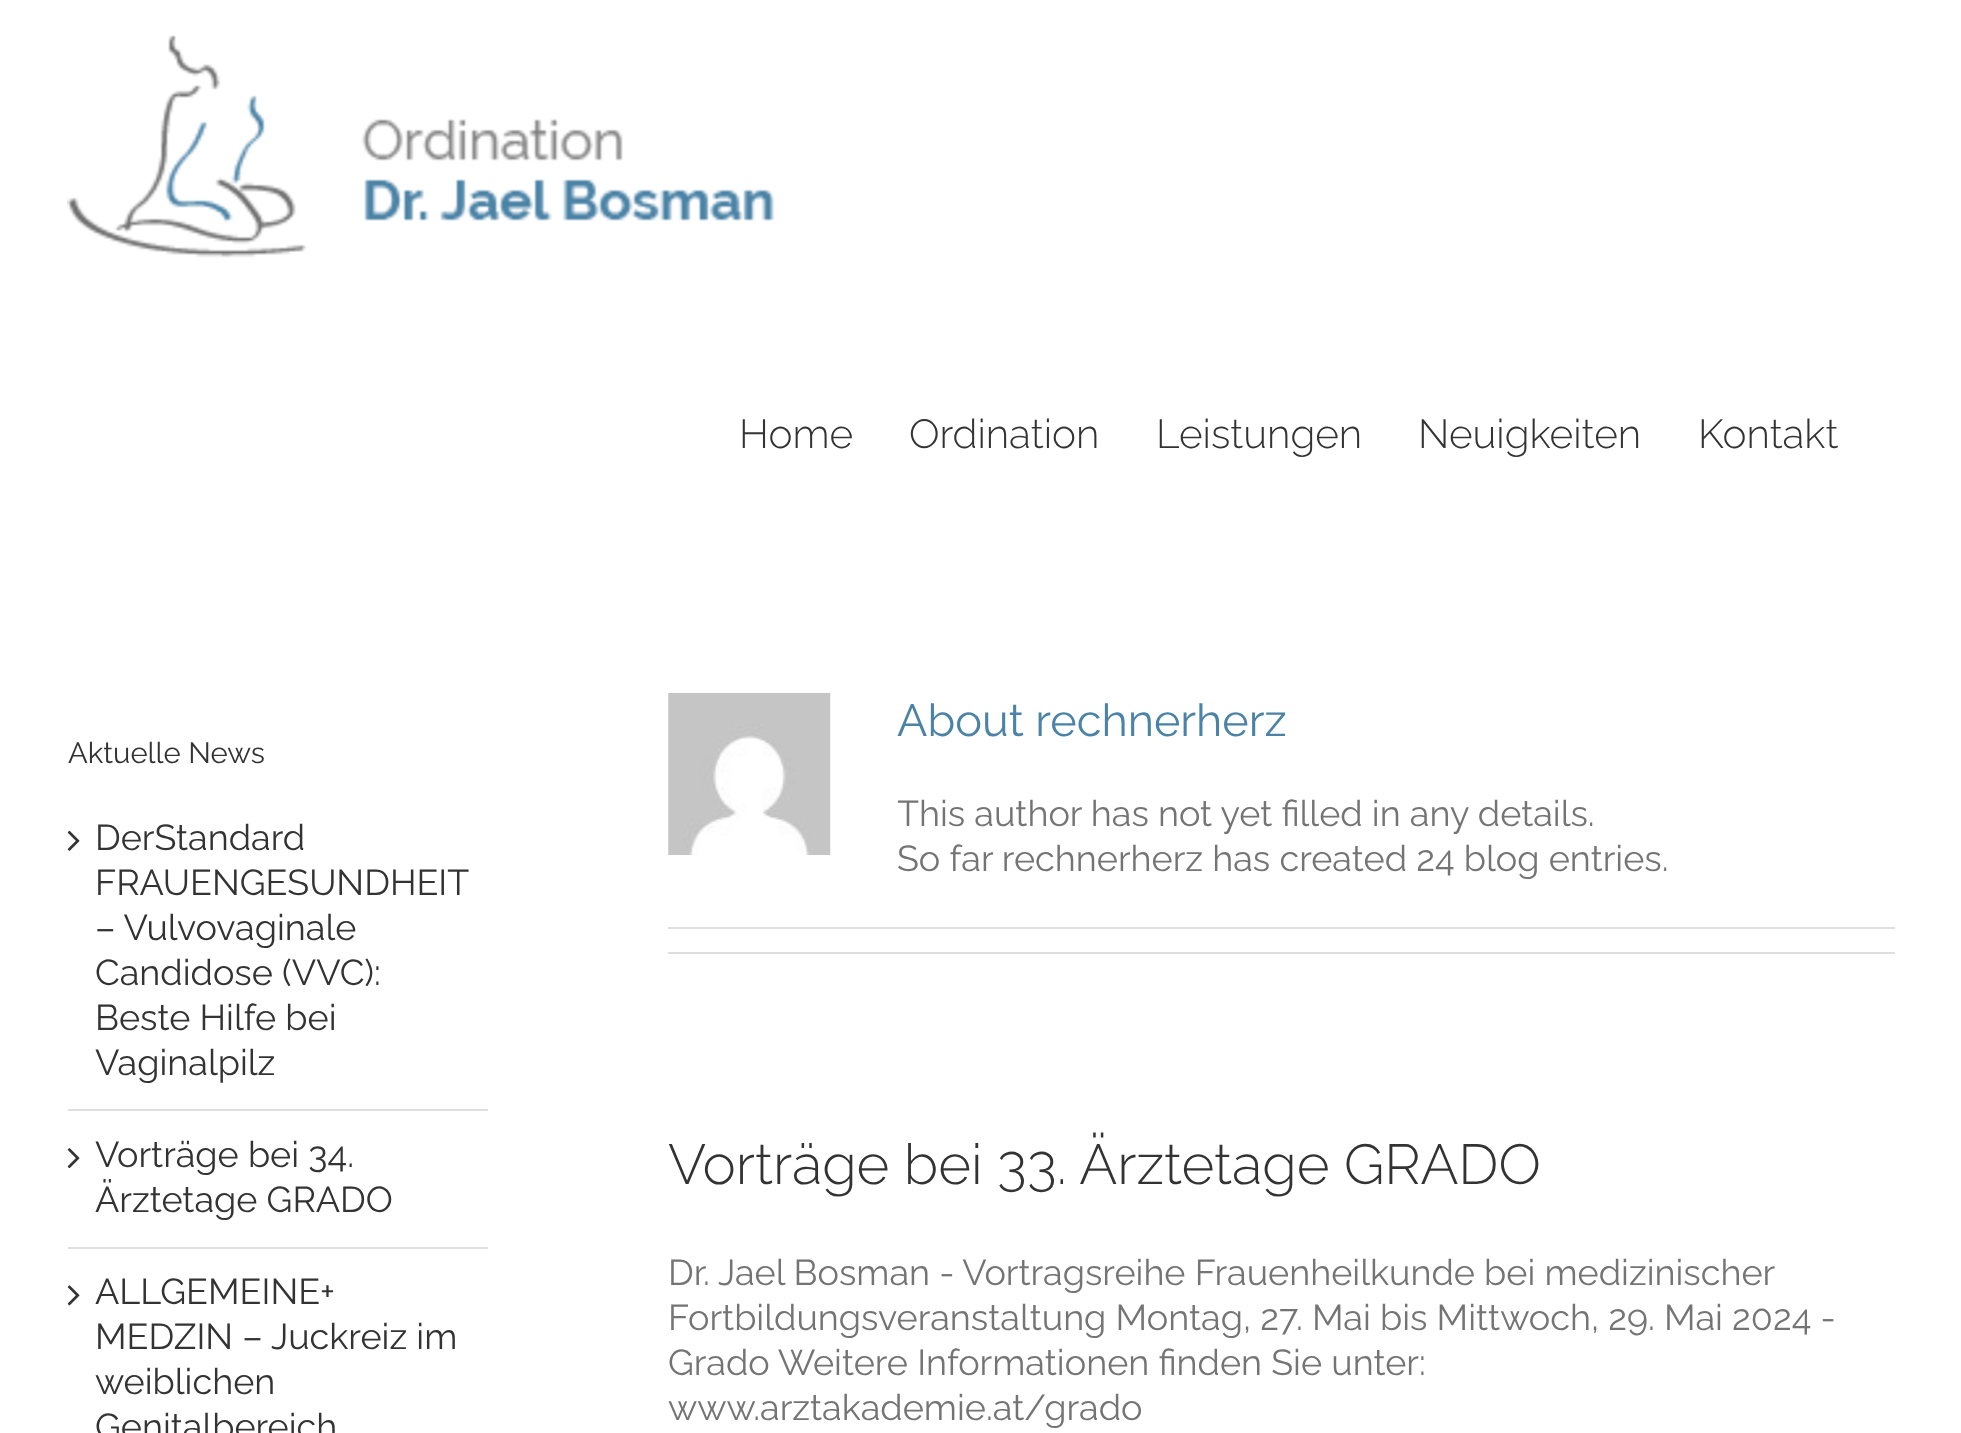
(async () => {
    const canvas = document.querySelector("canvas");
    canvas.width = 1961;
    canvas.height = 1433;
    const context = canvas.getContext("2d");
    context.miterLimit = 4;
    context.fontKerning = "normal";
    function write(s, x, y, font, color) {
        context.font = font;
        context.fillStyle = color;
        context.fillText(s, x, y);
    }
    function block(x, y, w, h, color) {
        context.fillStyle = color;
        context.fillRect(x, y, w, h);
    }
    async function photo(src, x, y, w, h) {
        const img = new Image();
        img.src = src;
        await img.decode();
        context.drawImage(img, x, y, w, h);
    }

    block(0, 0, 1961, 1433, "rgb(255, 255, 255)");
    await photo("media/1.png", 67, 35, 708, 223);
    write("Home", 739, 448, "300 40.5px Raleway", "rgb(51, 51, 51)");
    write("Ordination", 909, 448, "300 40.5px Raleway", "rgb(51, 51, 51)");
    write("Leistungen", 1156, 448, "300 40.5px Raleway", "rgb(51, 51, 51)");
    write("Neuigkeiten", 1418, 448, "300 40.5px Raleway", "rgb(51, 51, 51)");
    write("Kontakt", 1698, 448, "300 40.5px Raleway", "rgb(51, 51, 51)");
    write("Aktuelle News", 68, 763, "29.25px Raleway", "rgb(51, 51, 51)");
    block(68, 1109, 420, 2, "rgb(224, 222, 222)");
    await photo("media/2.png", 67, 830, 13, 21);
    write("DerStandard", 95, 850, "36px Raleway", "rgb(51, 51, 51)");
    write("FRAUENGESUNDHEIT", 95, 895, "36px Raleway", "rgb(51, 51, 51)");
    write("– Vulvovaginale", 95, 940, "36px Raleway", "rgb(51, 51, 51)");
    write("Candidose (VVC):", 95, 985, "36px Raleway", "rgb(51, 51, 51)");
    write("Beste Hilfe bei", 95, 1030, "36px Raleway", "rgb(51, 51, 51)");
    write("Vaginalpilz", 95, 1075, "36px Raleway", "rgb(51, 51, 51)");
    block(68, 1247, 420, 2, "rgb(224, 222, 222)");
    await photo("media/3.png", 67, 1148, 13, 21);
    write("Vorträge bei 34.", 95, 1167, "36px Raleway", "rgb(51, 51, 51)");
    write("Ärztetage GRADO", 95, 1212, "36px Raleway", "rgb(51, 51, 51)");
    await photo("media/4.png", 67, 1285, 13, 21);
    write("ALLGEMEINE+", 95, 1304, "36px Raleway", "rgb(51, 51, 51)");
    write("MEDZIN – Juckreiz im", 95, 1349, "36px Raleway", "rgb(51, 51, 51)");
    write("weiblichen", 95, 1394, "36px Raleway", "rgb(51, 51, 51)");
    write("Genitalbereich", 95, 1439, "36px Raleway", "rgb(51, 51, 51)");
    await photo("media/5.png", 668, 693, 163, 162);
    write("About rechnerherz", 897, 736, "45px Raleway", "rgb(75, 131, 166)");
    context.save();
    context.beginPath();
    context.rect(898, 693, 997, 189);
    context.clip();
    write("This author has not yet filled in any details.", 897, 826, "36px Raleway", "rgb(116, 116, 116)");
    context.restore();
    write("So far rechnerherz has created 24 blog entries.", 897, 871, "36px Raleway", "rgb(116, 116, 116)");
    block(668, 927, 1227, 2, "rgb(224, 222, 222)");
    block(668, 952, 1227, 2, "rgb(224, 222, 222)");
    write("Vorträge bei 33. Ärztetage GRADO", 668, 1184, "300 56.25px Raleway", "rgb(51, 51, 51)");
    write("Dr. Jael Bosman - Vortragsreihe Frauenheilkunde bei medizinischer", 668, 1285, "36px Raleway", "rgb(116, 116, 116)");
    write("Fortbildungsveranstaltung Montag, 27. Mai bis Mittwoch, 29. Mai 2024 -", 668, 1330, "36px Raleway", "rgb(116, 116, 116)");
    write("Grado Weitere Informationen finden Sie unter:", 668, 1375, "36px Raleway", "rgb(116, 116, 116)");
    write("www.arztakademie.at/grado", 668, 1420, "36px Raleway", "rgb(116, 116, 116)");
})();
